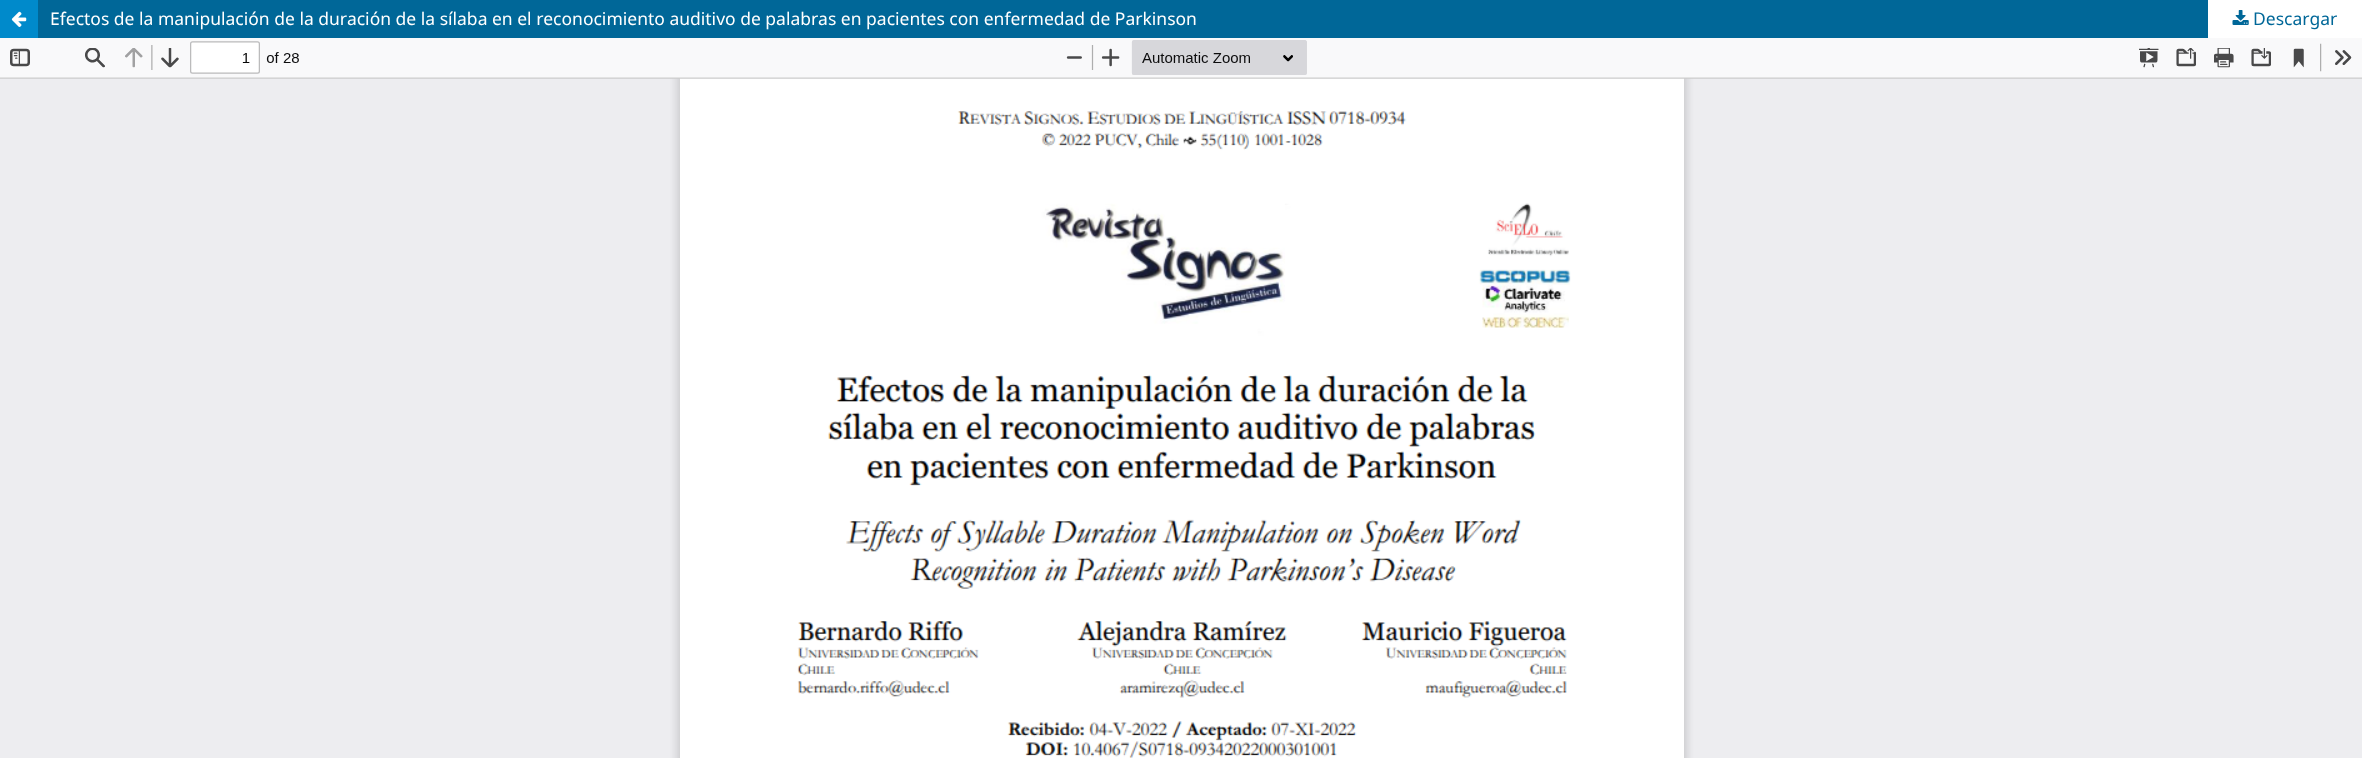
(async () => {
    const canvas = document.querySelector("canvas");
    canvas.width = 2362;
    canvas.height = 758;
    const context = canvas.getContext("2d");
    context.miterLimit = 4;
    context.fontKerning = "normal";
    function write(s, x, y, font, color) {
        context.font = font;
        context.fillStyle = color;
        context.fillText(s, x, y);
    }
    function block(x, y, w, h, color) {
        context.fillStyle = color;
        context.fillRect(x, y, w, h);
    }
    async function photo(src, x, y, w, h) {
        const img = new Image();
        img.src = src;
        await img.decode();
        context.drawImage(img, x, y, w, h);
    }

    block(0, 0, 2362, 758, "rgb(255, 255, 255)");
    block(38, 0, 2170, 38, "rgb(0, 103, 152)");
    block(0, 0, 38, 38, "rgb(0, 138, 203)");
    await photo("media/1.png", 11, 11, 16, 16);
    write("Efectos de la manipulación de la duración de la sílaba en el reconocimiento auditivo de palabras en pacientes con enfermedad de Parkinson", 50, 25, "17.5px Noto Sans", "rgb(255, 255, 255)");
    await photo("media/2.png", 2232, 10, 17, 15);
    write("Descargar", 2253, 25, "17.5px Noto Sans", "rgb(0, 103, 152)");
    await photo("media/3.png", 0, 38, 2362, 720);
})();
